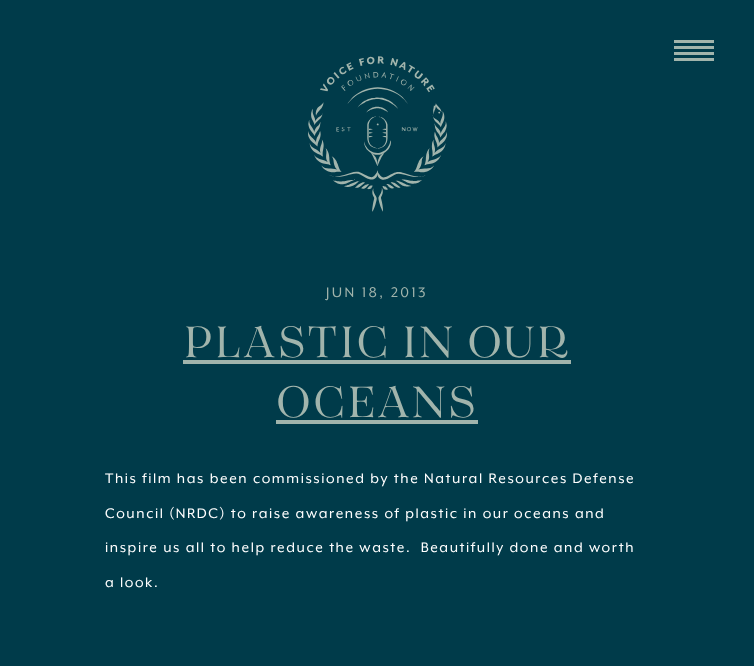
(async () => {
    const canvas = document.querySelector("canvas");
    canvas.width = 754;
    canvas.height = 666;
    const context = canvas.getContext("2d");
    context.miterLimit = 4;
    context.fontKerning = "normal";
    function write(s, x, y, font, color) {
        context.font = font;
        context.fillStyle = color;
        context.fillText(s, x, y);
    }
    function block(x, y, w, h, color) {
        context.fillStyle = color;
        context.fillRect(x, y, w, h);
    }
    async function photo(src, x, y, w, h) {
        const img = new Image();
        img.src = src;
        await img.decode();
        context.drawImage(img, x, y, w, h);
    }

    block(0, 0, 754, 666, "rgb(0, 59, 74)");
    block(674, 40, 40, 3, "rgb(161, 180, 172)");
    block(674, 46, 40, 3, "rgb(161, 180, 172)");
    block(674, 52, 40, 3, "rgb(161, 180, 172)");
    block(674, 58, 40, 3, "rgb(161, 180, 172)");
    await photo("media/1.png", 308, 56, 139, 156);
    context.letterSpacing = "2.4px";
    write("JUN 18, 2013", 326, 297, "16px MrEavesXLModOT", "rgb(161, 180, 172)");
    write("PLASTIC IN OUR", 183, 357, "48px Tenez", "rgb(161, 180, 172)");
    block(183, 360, 388, 4, "rgb(161, 180, 172)");
    write("OCEANS", 276, 417, "48px Tenez", "rgb(161, 180, 172)");
    block(276, 420, 202, 4, "rgb(161, 180, 172)");
    context.letterSpacing = "1.6px";
    write("This film has been commissioned by the Natural Resources Defense", 105, 483, "16px MrEavesXLModOT", "rgb(255, 255, 255)");
    write("Council (NRDC) to raise awareness of plastic in our oceans and", 105, 518, "16px MrEavesXLModOT", "rgb(255, 255, 255)");
    write("inspire us all to help reduce the waste.  Beautifully done and worth", 105, 552, "16px MrEavesXLModOT", "rgb(255, 255, 255)");
    write("a look.", 105, 587, "16px MrEavesXLModOT", "rgb(255, 255, 255)");
})();
